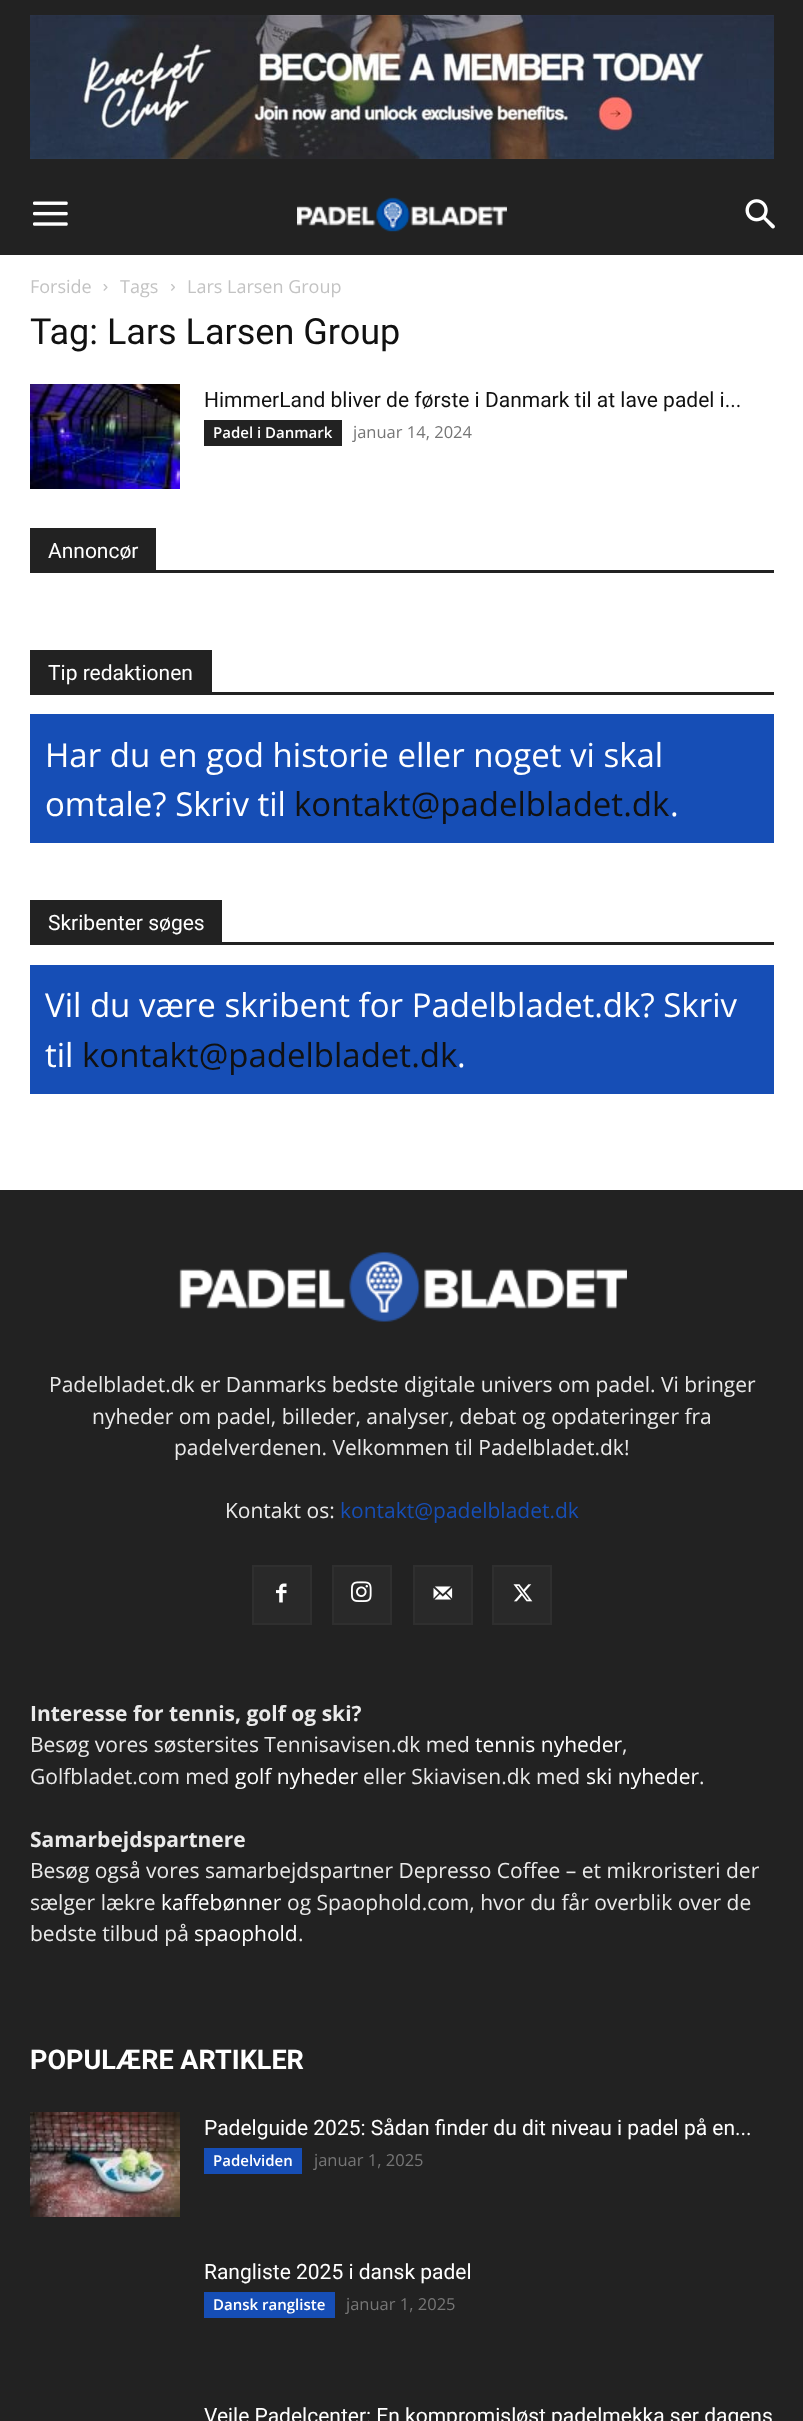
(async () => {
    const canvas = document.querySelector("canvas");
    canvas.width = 803;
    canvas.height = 2421;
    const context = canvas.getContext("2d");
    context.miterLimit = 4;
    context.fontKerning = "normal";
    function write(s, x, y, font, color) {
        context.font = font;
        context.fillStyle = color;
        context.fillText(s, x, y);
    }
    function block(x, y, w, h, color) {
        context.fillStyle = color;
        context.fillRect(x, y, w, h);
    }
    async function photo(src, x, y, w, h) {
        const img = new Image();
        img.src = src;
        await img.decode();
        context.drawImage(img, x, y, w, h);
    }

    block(0, 0, 803, 2421, "rgb(255, 255, 255)");
    block(0, 0, 803, 255, "rgb(34, 34, 34)");
    await photo("media/1.png", 30, 15, 744, 144);
    await photo("media/2.png", 33, 201, 35, 25);
    await photo("media/3.png", 297, 197, 210, 35);
    await photo("media/4.png", 745, 199, 30, 30);
    write("Forside", 30, 293, "18px Open Sans", "rgb(195, 195, 195)");
    await photo("media/5.png", 103, 284, 5, 7);
    write("Tags", 120, 293, "18px Open Sans", "rgb(195, 195, 195)");
    await photo("media/6.png", 171, 284, 4, 7);
    write("Lars Larsen Group", 187, 293, "18px Open Sans", "rgb(195, 195, 195)");
    write("Tag: Lars Larsen Group", 30, 344, "36px Roboto", "rgb(17, 17, 17)");
    await photo("media/7.png", 30, 384, 150, 105);
    write("HimmerLand bliver de første i Danmark til at lave padel i...", 204, 407, "21px Roboto", "rgb(17, 17, 17)");
    block(204, 420, 138, 26, "rgb(34, 34, 34)");
    write("Padel i Danmark", 213, 438, "600 15px Open Sans", "rgb(255, 255, 255)");
    write("januar 14, 2024", 353, 438, "16.5px Open Sans", "rgb(118, 118, 118)");
    block(30, 570, 744, 3, "rgb(34, 34, 34)");
    block(30, 528, 126, 42, "rgb(34, 34, 34)");
    write("Annoncør", 48, 558, "21px Roboto", "rgb(255, 255, 255)");
    block(30, 692, 744, 3, "rgb(34, 34, 34)");
    block(30, 650, 182, 42, "rgb(34, 34, 34)");
    write("Tip redaktionen", 48, 680, "21px Roboto", "rgb(255, 255, 255)");
    block(30, 714, 744, 129, "rgb(22, 78, 182)");
    write("Har du en god historie eller noget vi skal", 45, 767, "33px Open Sans", "rgb(255, 255, 255)");
    write("omtale? Skriv til", 45, 816, "33px Open Sans", "rgb(255, 255, 255)");
    write("kontakt@padelbladet.dk", 294, 816, "33px Open Sans", "rgb(17, 17, 17)");
    write(".", 670, 816, "33px Open Sans", "rgb(255, 255, 255)");
    block(30, 942, 744, 3, "rgb(34, 34, 34)");
    block(30, 900, 192, 42, "rgb(34, 34, 34)");
    write("Skribenter søges", 48, 930, "21px Roboto", "rgb(255, 255, 255)");
    block(30, 965, 744, 129, "rgb(22, 78, 182)");
    write("Vil du være skribent for Padelbladet.dk? Skriv", 45, 1017, "33px Open Sans", "rgb(255, 255, 255)");
    write("til", 45, 1067, "33px Open Sans", "rgb(255, 255, 255)");
    write("kontakt@padelbladet.dk", 82, 1067, "33px Open Sans", "rgb(17, 17, 17)");
    write(".", 457, 1067, "33px Open Sans", "rgb(255, 255, 255)");
    block(0, 1190, 803, 1231, "rgb(34, 34, 34)");
    await photo("media/8.png", 179, 1252, 448, 70);
    write("Padelbladet.dk er Danmarks bedste digitale univers om padel. Vi bringer", 49, 1392, "21px Open Sans", "rgb(234, 234, 234)");
    write("nyheder om padel, billeder, analyser, debat og opdateringer fra", 92, 1424, "21px Open Sans", "rgb(234, 234, 234)");
    write("padelverdenen. Velkommen til Padelbladet.dk!", 174, 1455, "21px Open Sans", "rgb(234, 234, 234)");
    write("Kontakt os:", 225, 1518, "21px Open Sans", "rgb(234, 234, 234)");
    write("kontakt@padelbladet.dk", 340, 1518, "21px Open Sans", "rgb(22, 78, 182)");
    block(254, 1567, 56, 56, "rgb(41, 41, 41)");
    await photo("media/9.png", 276, 1583, 11, 20);
    context.strokeStyle = "rgb(47, 47, 47)";
    context.lineWidth = 2;
    context.strokeRect(253, 1566, 58, 58);
    block(334, 1567, 56, 56, "rgb(41, 41, 41)");
    await photo("media/10.png", 351, 1581, 21, 21);
    context.strokeRect(333, 1566, 58, 58);
    block(415, 1567, 56, 56, "rgb(41, 41, 41)");
    await photo("media/11.png", 433, 1586, 20, 14);
    context.strokeRect(414, 1566, 58, 58);
    block(494, 1567, 56, 56, "rgb(41, 41, 41)");
    await photo("media/12.png", 513, 1584, 20, 18);
    context.strokeRect(493, 1566, 58, 58);
    write("Interesse for tennis, golf og ski?", 30, 1721, "bold 21px Open Sans", "rgb(234, 234, 234)");
    write("Besøg vores søstersites Tennisavisen.dk med", 30, 1752, "21px Open Sans", "rgb(234, 234, 234)");
    write("tennis nyheder", 475, 1752, "21px Open Sans", "rgb(255, 255, 255)");
    write(",", 622, 1752, "21px Open Sans", "rgb(234, 234, 234)");
    write("Golfbladet.com med", 30, 1784, "21px Open Sans", "rgb(234, 234, 234)");
    write("golf nyheder", 235, 1784, "21px Open Sans", "rgb(255, 255, 255)");
    write("eller Skiavisen.dk med", 363, 1784, "21px Open Sans", "rgb(234, 234, 234)");
    write("ski nyheder", 586, 1784, "21px Open Sans", "rgb(255, 255, 255)");
    write(".", 699, 1784, "21px Open Sans", "rgb(234, 234, 234)");
    write("Samarbejdspartnere", 30, 1847, "bold 21px Open Sans", "rgb(234, 234, 234)");
    write("Besøg også vores samarbejdspartner Depresso Coffee – et mikroristeri der", 30, 1878, "21px Open Sans", "rgb(234, 234, 234)");
    write("sælger lækre", 30, 1910, "21px Open Sans", "rgb(234, 234, 234)");
    write("kaffebønner", 161, 1910, "21px Open Sans", "rgb(255, 255, 255)");
    write("og Spaophold.com, hvor du får overblik over de", 287, 1910, "21px Open Sans", "rgb(234, 234, 234)");
    write("bedste tilbud på", 30, 1941, "21px Open Sans", "rgb(234, 234, 234)");
    write("spaophold", 194, 1941, "21px Open Sans", "rgb(255, 255, 255)");
    write(".", 298, 1941, "21px Open Sans", "rgb(234, 234, 234)");
    write("POPULÆRE ARTIKLER", 30, 2069, "bold 27px Roboto", "rgb(255, 255, 255)");
    await photo("media/13.png", 30, 2112, 150, 105);
    write("Padelguide 2025: Sådan finder du dit niveau i padel på en...", 204, 2135, "21px Roboto", "rgb(255, 255, 255)");
    block(204, 2148, 98, 26, "rgb(22, 78, 182)");
    write("Padelviden", 213, 2166, "600 15px Open Sans", "rgb(255, 255, 255)");
    write("januar 1, 2025", 314, 2166, "16.5px Open Sans", "rgb(118, 118, 118)");
    write("Rangliste 2025 i dansk padel", 204, 2279, "21px Roboto", "rgb(255, 255, 255)");
    block(204, 2292, 131, 26, "rgb(22, 78, 182)");
    write("Dansk rangliste", 213, 2310, "600 15px Open Sans", "rgb(255, 255, 255)");
    write("januar 1, 2025", 346, 2310, "16.5px Open Sans", "rgb(118, 118, 118)");
    write("Vejle Padelcenter: En kompromisløst padelmekka ser dagens", 204, 2423, "21px Roboto", "rgb(255, 255, 255)");
})();
